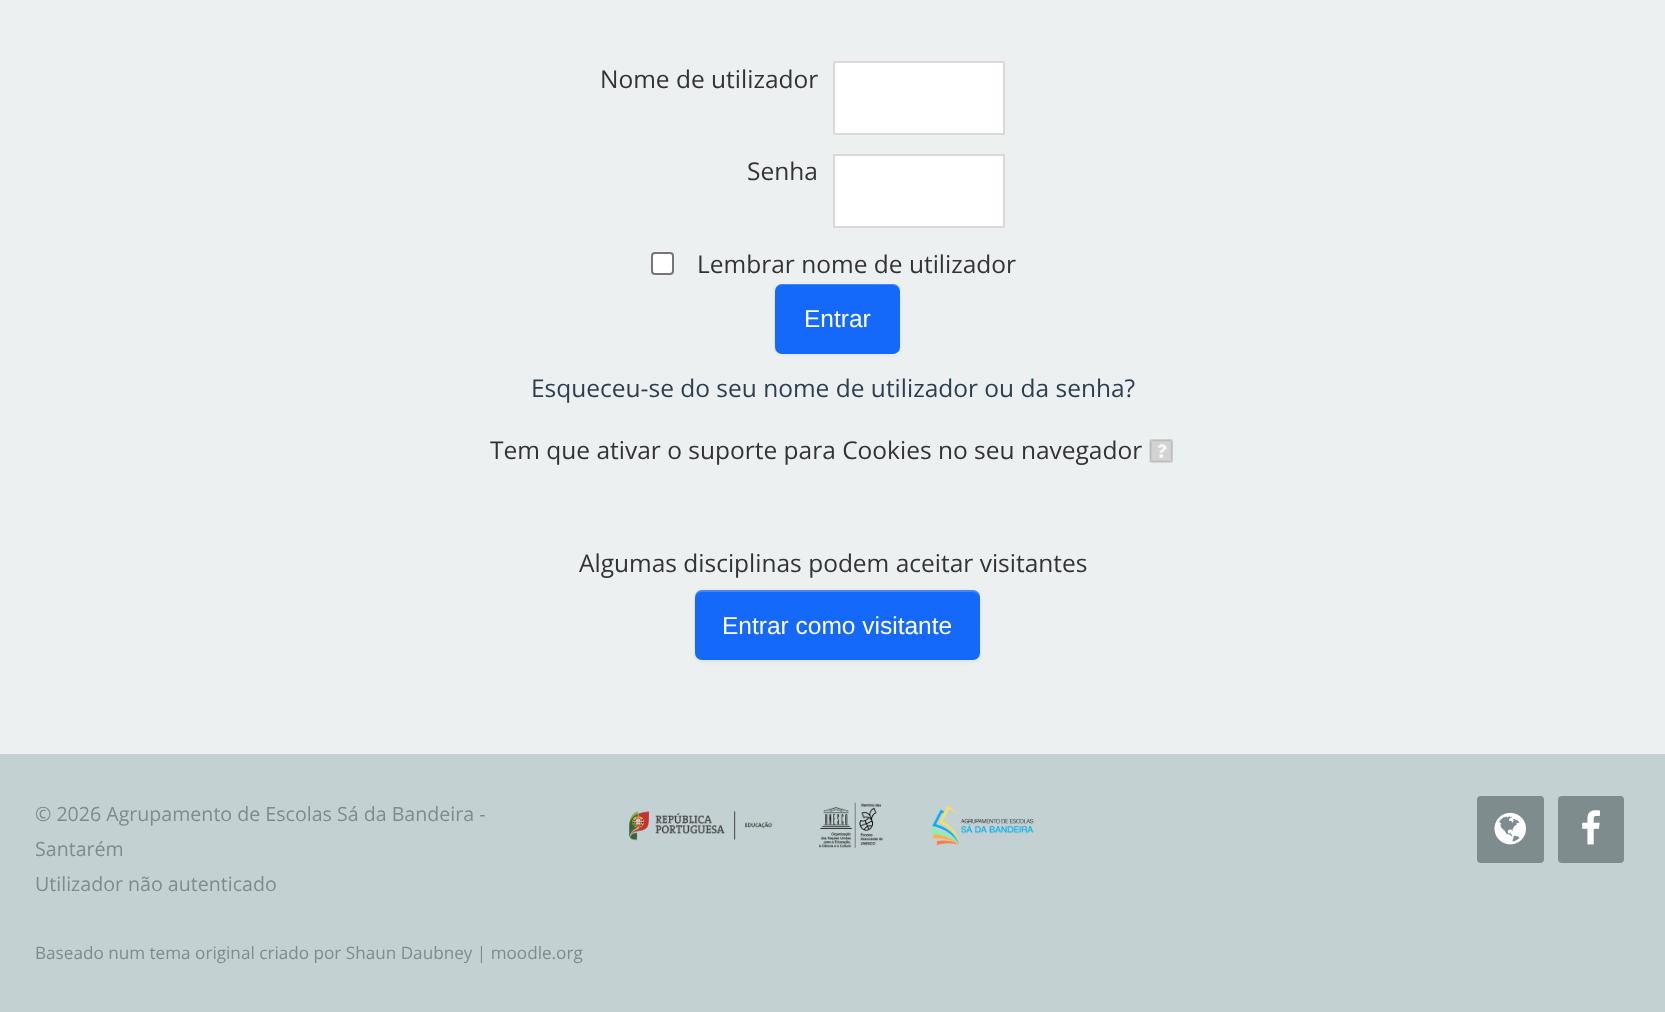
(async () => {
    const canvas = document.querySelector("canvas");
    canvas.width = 1665;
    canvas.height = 1012;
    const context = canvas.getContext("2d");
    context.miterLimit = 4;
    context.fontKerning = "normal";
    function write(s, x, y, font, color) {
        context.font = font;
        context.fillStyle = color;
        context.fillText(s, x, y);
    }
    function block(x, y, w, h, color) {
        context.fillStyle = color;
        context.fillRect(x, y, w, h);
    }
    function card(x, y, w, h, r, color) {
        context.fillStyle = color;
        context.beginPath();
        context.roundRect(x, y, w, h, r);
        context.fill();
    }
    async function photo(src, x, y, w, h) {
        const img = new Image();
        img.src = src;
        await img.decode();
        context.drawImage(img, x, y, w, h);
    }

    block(0, 0, 1665, 1012, "rgb(236, 240, 241)");
    write("Nome de utilizador", 600, 88, "24.5px Open Sans", "rgb(51, 51, 51)");
    context.fillStyle = "rgb(255, 255, 255)";
    context.beginPath();
    context.rect(834, 62, 170, 72);
    context.fill();
    context.strokeStyle = "rgb(217, 217, 217)";
    context.lineWidth = 2;
    context.stroke();
    write("Senha", 747, 180, "24.5px Open Sans", "rgb(51, 51, 51)");
    context.fillStyle = "rgb(255, 255, 255)";
    context.beginPath();
    context.rect(834, 155, 170, 72);
    context.fill();
    context.stroke();
    context.beginPath();
    context.roundRect(652, 253, 21, 21, 3);
    context.fill();
    context.strokeStyle = "rgb(118, 118, 118)";
    context.stroke();
    write("Lembrar nome de utilizador", 697, 273, "24.5px Open Sans", "rgb(51, 51, 51)");
    context.fillStyle = "rgba(0, 0, 0, 0.05)";
    context.filter = "blur(2px)";
    context.beginPath();
    context.roundRect(775, 285, 125, 70, 7);
    context.fill();
    context.filter = "none";
    card(775, 284, 125, 70, 7, "rgb(20, 104, 250)");
    context.fillStyle = "rgba(255, 255, 255, 0.2)";
    context.beginPath();
    context.moveTo(782, 285);
    context.lineTo(892, 285);
    context.bezierCurveTo(896, 285, 900, 288, 900, 292);
    context.bezierCurveTo(900, 279, 881, 284, 874, 284);
    context.lineTo(800, 284);
    context.bezierCurveTo(794, 284, 775, 279, 775, 292);
    context.bezierCurveTo(775, 288, 778, 285, 782, 285);
    context.closePath();
    context.fill();
    write("Entrar", 804, 327, "24.5px Liberation Sans", "rgb(255, 255, 255)");
    write("Esqueceu-se do seu nome de utilizador ou da senha?", 531, 397, "24.5px Open Sans", "rgb(44, 62, 80)");
    write("Tem que ativar o suporte para Cookies no seu navegador", 490, 459, "24.5px Open Sans", "rgb(51, 51, 51)");
    await photo("media/1.png", 1149, 439, 24, 24);
    write("Algumas disciplinas podem aceitar visitantes", 579, 572, "24.5px Open Sans", "rgb(51, 51, 51)");
    context.fillStyle = "rgba(0, 0, 0, 0.05)";
    context.filter = "blur(2px)";
    context.beginPath();
    context.roundRect(695, 592, 285, 70, 7);
    context.fill();
    context.filter = "none";
    card(695, 590, 285, 70, 7, "rgb(20, 104, 250)");
    context.fillStyle = "rgba(255, 255, 255, 0.2)";
    context.beginPath();
    context.moveTo(702, 592);
    context.lineTo(973, 592);
    context.bezierCurveTo(977, 592, 980, 595, 980, 598);
    context.lineTo(980, 597);
    context.bezierCurveTo(980, 593, 977, 590, 973, 590);
    context.lineTo(702, 590);
    context.bezierCurveTo(698, 590, 695, 593, 695, 597);
    context.lineTo(695, 598);
    context.bezierCurveTo(695, 595, 698, 592, 702, 592);
    context.closePath();
    context.fill();
    write("Entrar como visitante", 722, 634, "24.5px Liberation Sans", "rgb(255, 255, 255)");
    block(0, 754, 1665, 258, "rgb(195, 209, 210)");
    write("© 2026 Agrupamento de Escolas Sá da Bandeira -", 35, 821, "19.6px Open Sans", "rgb(127, 140, 141)");
    write("Santarém", 35, 856, "19.6px Open Sans", "rgb(127, 140, 141)");
    write("Utilizador não autenticado", 35, 891, "19.6px Open Sans", "rgb(127, 140, 141)");
    await photo("media/2.png", 629, 802, 405, 47);
    card(1477, 796, 67, 67, 4, "rgb(127, 140, 141)");
    await photo("media/3.png", 1494, 812, 32, 33);
    card(1558, 796, 66, 67, 4, "rgb(127, 140, 141)");
    await photo("media/4.png", 1582, 810, 18, 35);
    write("Baseado num tema original criado por Shaun Daubney | moodle.org", 35, 959, "17.15px Open Sans", "rgb(127, 140, 141)");
})();
